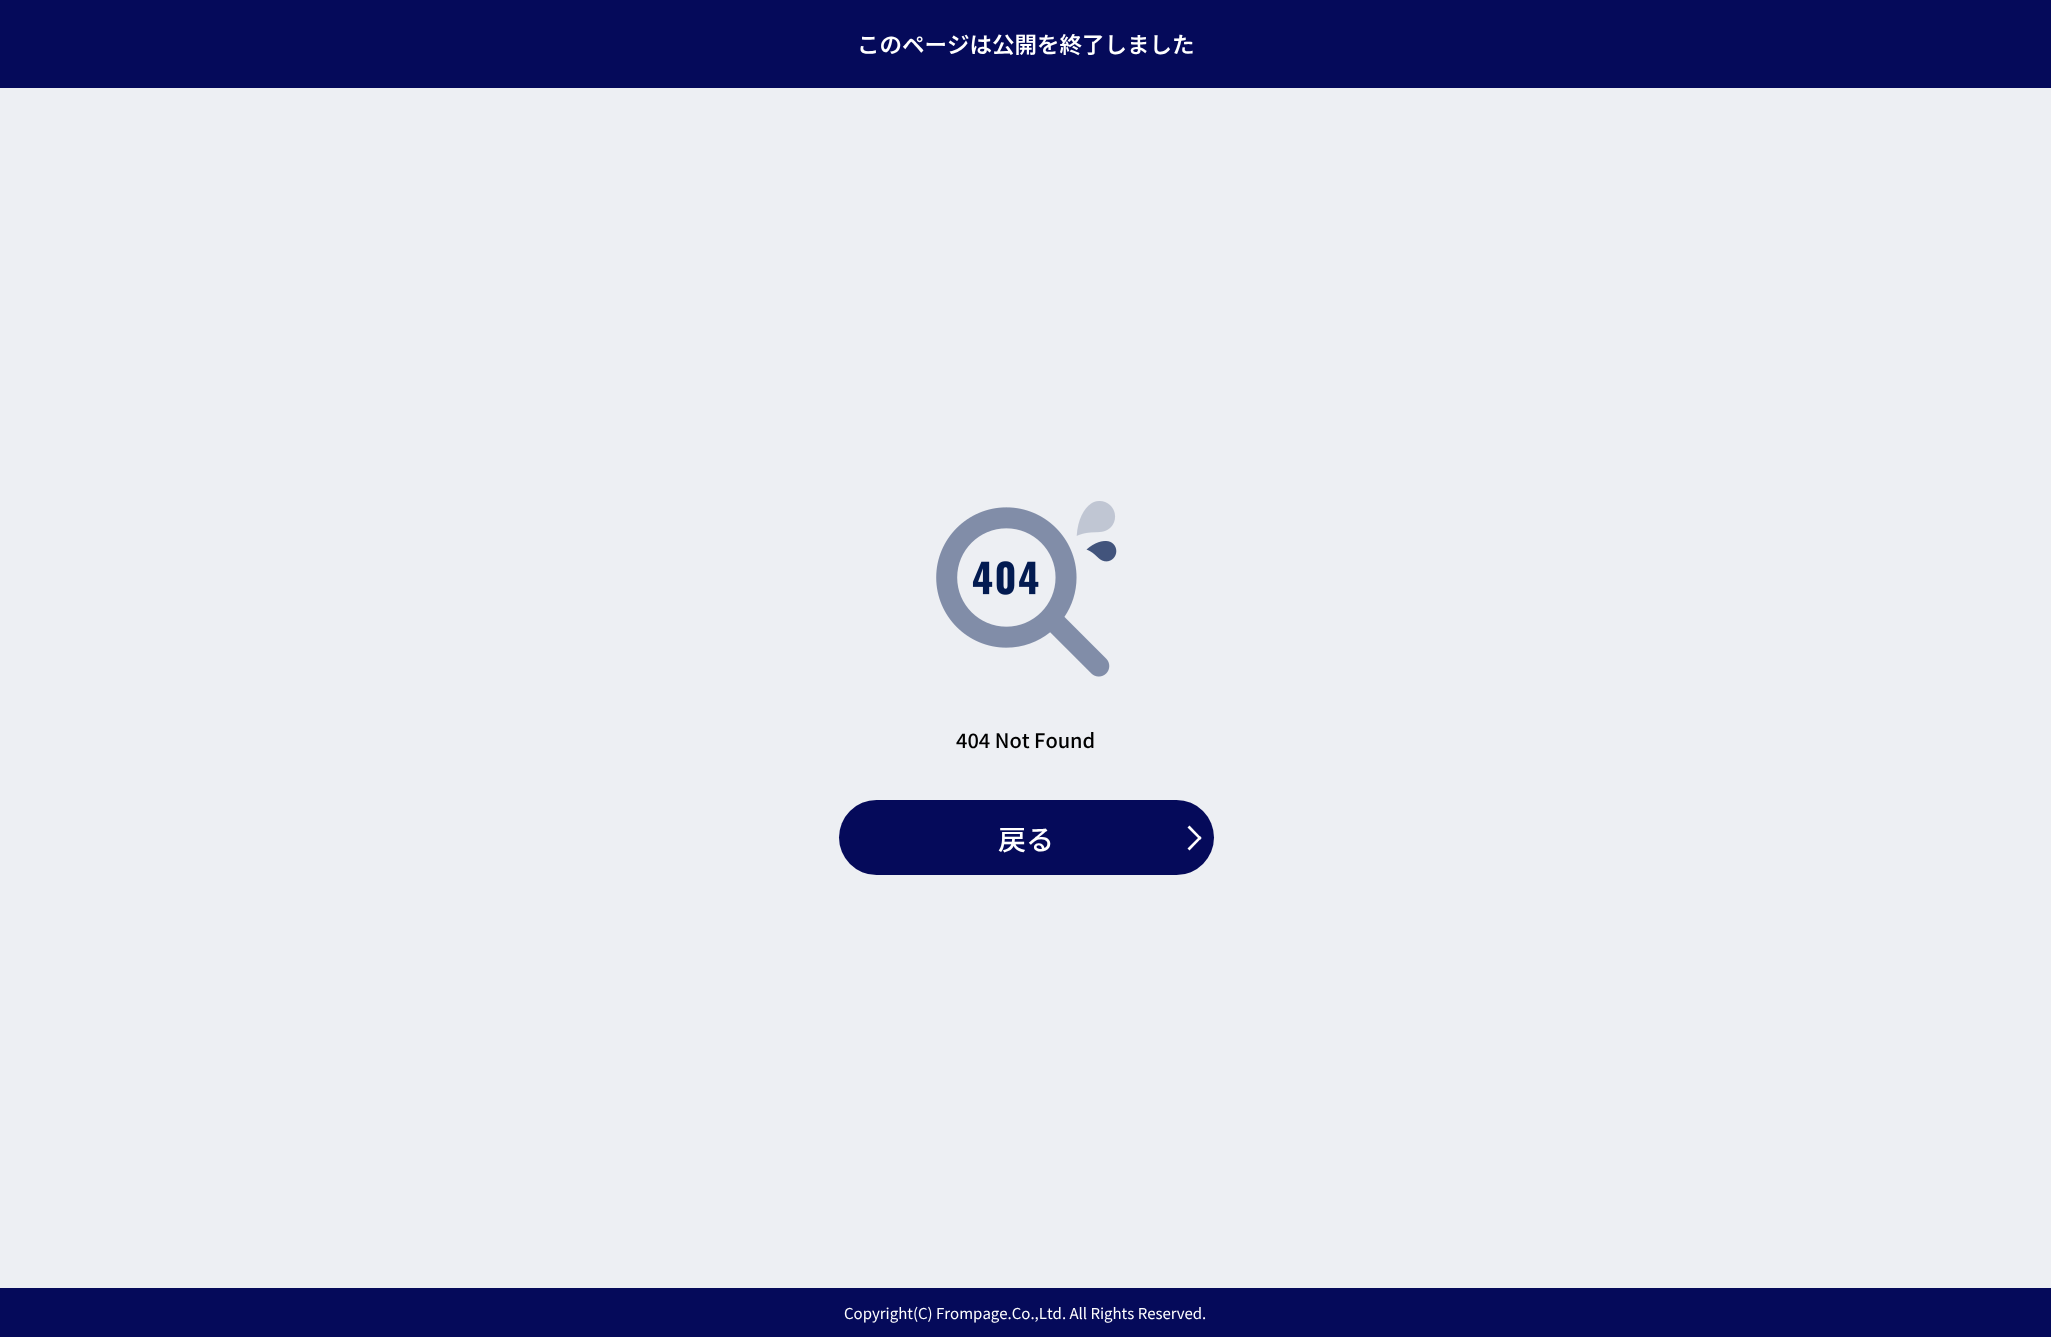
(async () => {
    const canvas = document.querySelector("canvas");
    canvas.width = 2051;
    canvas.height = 1337;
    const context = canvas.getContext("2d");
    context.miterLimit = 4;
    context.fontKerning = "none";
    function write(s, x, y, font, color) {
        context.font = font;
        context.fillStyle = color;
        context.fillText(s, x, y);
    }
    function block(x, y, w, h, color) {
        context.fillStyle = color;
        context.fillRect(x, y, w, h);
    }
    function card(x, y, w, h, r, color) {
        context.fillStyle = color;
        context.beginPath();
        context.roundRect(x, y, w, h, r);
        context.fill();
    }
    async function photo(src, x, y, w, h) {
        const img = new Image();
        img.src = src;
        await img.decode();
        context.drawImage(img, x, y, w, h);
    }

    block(0, 0, 2051, 1337, "rgb(5, 10, 90)");
    write("このページは公開を終了しました", 857, 53, "600 22.5px Noto Sans JP", "rgb(255, 255, 255)");
    block(0, 88, 2051, 1200, "rgb(237, 239, 243)");
    await photo("media/1.png", 936, 501, 181, 176);
    write("404 Not Found", 956, 748, "500 20px Noto Sans JP", "rgb(0, 0, 0)");
    card(839, 800, 375, 75, 37.5, "rgb(5, 10, 90)");
    write("戻る", 998, 850, "500 28px Noto Sans JP", "rgb(255, 255, 255)");
    context.beginPath();
    context.moveTo(1187.5, 827.5);
    context.lineTo(1189.5, 825.5);
    context.lineTo(1201.5, 838);
    context.lineTo(1200, 840);
    context.closePath();
    context.fill();
    context.beginPath();
    context.moveTo(1187.5, 848.5);
    context.lineTo(1200, 836);
    context.lineTo(1201.5, 838);
    context.lineTo(1189.5, 850.5);
    context.closePath();
    context.fill();
    write("Copyright(C) Frompage.Co.,Ltd. All Rights Reserved.", 844, 1319, "15px Noto Sans JP", "rgb(255, 255, 255)");
})();
